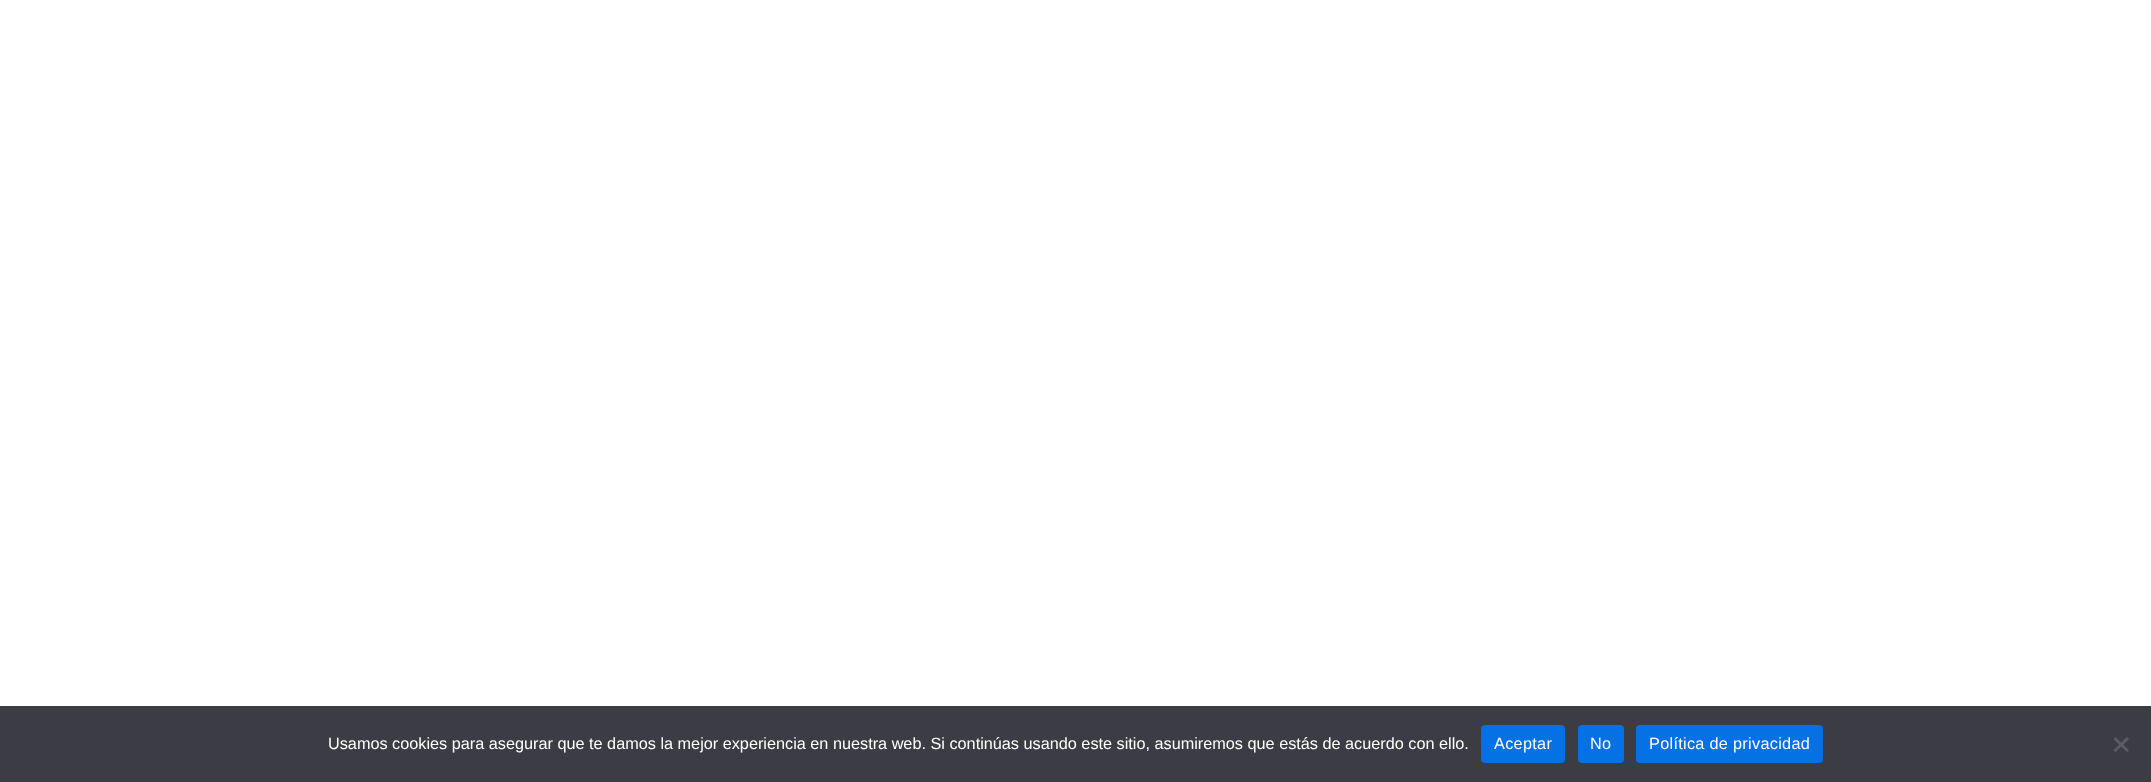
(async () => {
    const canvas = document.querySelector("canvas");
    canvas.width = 2151;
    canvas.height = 782;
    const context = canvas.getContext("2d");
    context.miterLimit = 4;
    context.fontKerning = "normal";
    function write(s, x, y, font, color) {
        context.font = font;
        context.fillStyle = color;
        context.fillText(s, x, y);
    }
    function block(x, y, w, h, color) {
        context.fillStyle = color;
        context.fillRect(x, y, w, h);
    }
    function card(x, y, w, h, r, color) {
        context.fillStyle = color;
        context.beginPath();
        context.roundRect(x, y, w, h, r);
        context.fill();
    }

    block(0, 0, 2151, 782, "rgb(255, 255, 255)");
    block(0, 706, 2151, 76, "rgb(60, 60, 68)");
    write("Usamos cookies para asegurar que te damos la mejor experiencia en nuestra web. Si continúas usando este sitio, asumiremos que estás de acuerdo con ello.", 328, 749, "16.25px Liberation Sans", "rgb(255, 255, 255)");
    card(1481, 725, 84, 38, 4, "rgb(5, 113, 228)");
    context.letterSpacing = "0.3px";
    write("Aceptar", 1494, 749, "16.25px Liberation Sans", "rgb(255, 255, 255)");
    card(1578, 725, 46, 38, 4, "rgb(5, 113, 228)");
    write("No", 1590, 749, "16.25px Liberation Sans", "rgb(255, 255, 255)");
    card(1636, 725, 187, 38, 4, "rgb(5, 113, 228)");
    write("Política de privacidad", 1649, 749, "16.25px Liberation Sans", "rgb(255, 255, 255)");
    context.fillStyle = "rgb(94, 94, 98)";
    context.beginPath();
    context.moveTo(2127, 737);
    context.lineTo(2129, 739);
    context.lineTo(2115.5, 752);
    context.lineTo(2113.5, 750.5);
    context.closePath();
    context.fill();
    context.beginPath();
    context.moveTo(2113.5, 739);
    context.lineTo(2115.5, 737);
    context.lineTo(2129, 750.5);
    context.lineTo(2127, 752);
    context.closePath();
    context.fill();
})();
